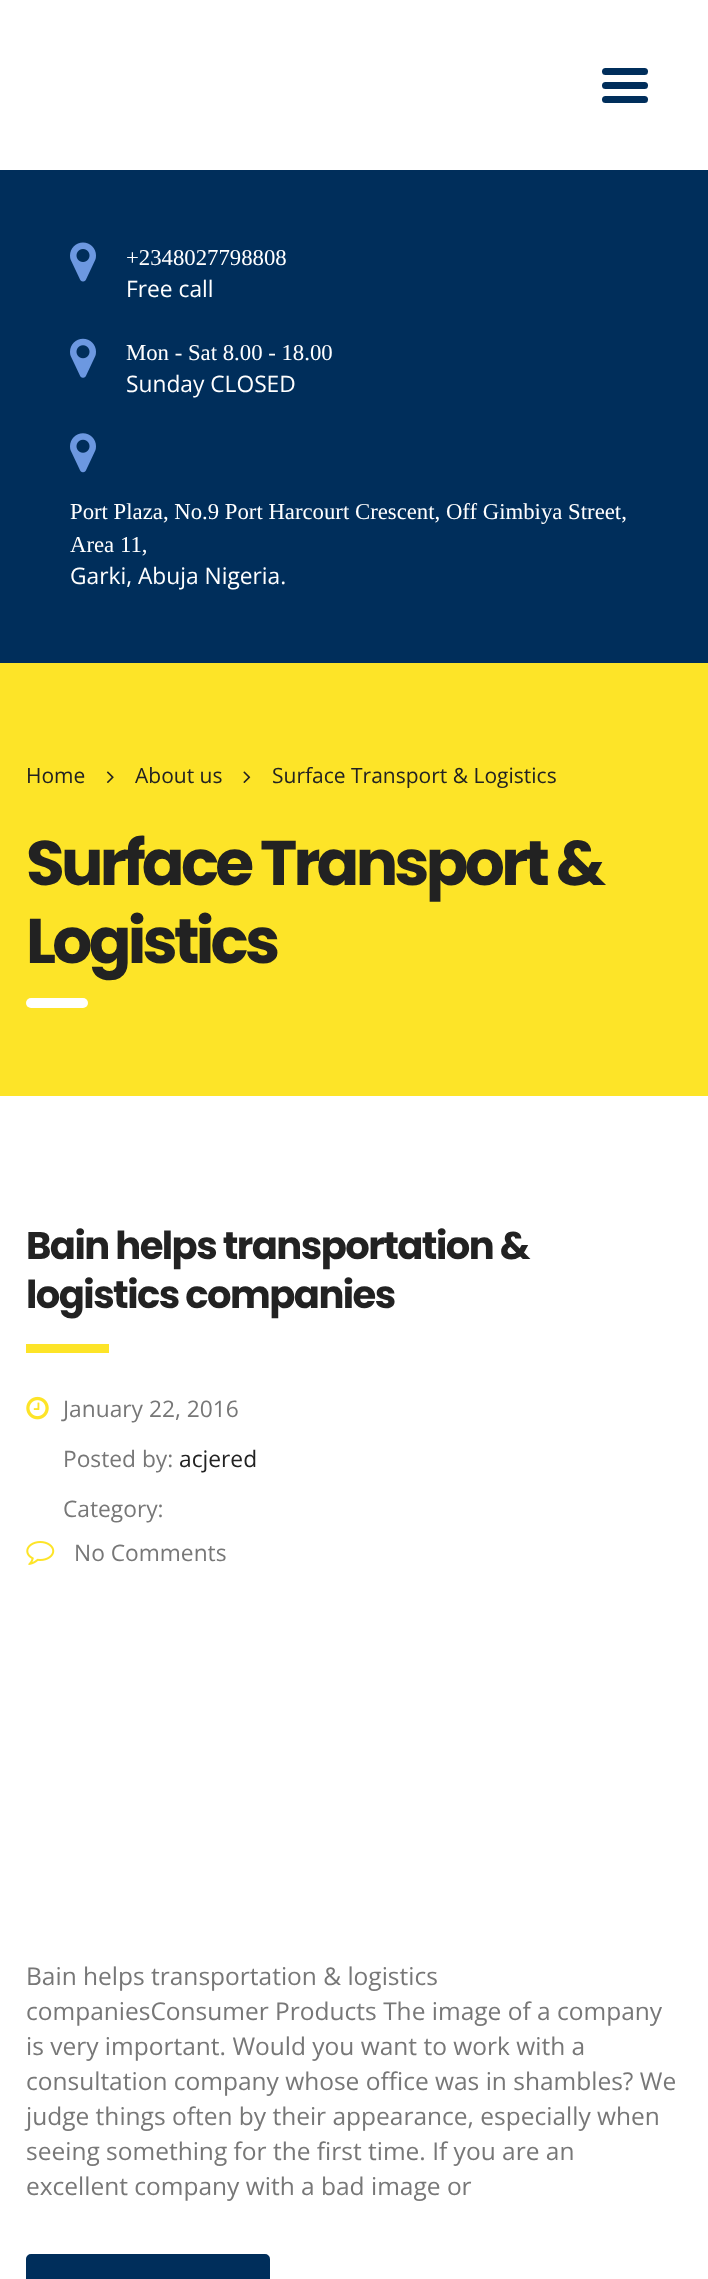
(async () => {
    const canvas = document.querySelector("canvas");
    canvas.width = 708;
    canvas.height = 2279;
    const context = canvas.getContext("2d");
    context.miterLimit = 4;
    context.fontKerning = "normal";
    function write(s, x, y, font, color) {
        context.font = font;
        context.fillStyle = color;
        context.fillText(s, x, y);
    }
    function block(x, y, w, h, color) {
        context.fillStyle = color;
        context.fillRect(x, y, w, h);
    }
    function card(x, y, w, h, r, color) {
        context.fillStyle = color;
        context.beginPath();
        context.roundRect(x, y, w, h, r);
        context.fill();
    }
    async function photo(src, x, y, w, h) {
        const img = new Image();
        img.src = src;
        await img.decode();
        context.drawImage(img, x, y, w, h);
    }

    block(0, 0, 708, 2279, "rgb(255, 255, 255)");
    card(602, 82, 46, 7, 3.5, "rgb(0, 46, 91)");
    card(602, 68, 46, 7, 3.5, "rgb(0, 46, 91)");
    card(602, 96, 46, 7, 3.5, "rgb(0, 46, 91)");
    block(0, 170, 708, 493, "rgb(0, 46, 91)");
    await photo("media/1.png", 70, 242, 26, 40);
    write("+2348027798808", 126, 265, "22.75px Liberation Serif", "rgb(255, 255, 255)");
    write("Free call", 126, 297, "22.75px Open Sans", "rgb(255, 255, 255)");
    await photo("media/2.png", 70, 338, 26, 40);
    write("Mon - Sat 8.00 - 18.00", 126, 360, "22.75px Liberation Serif", "rgb(255, 255, 255)");
    write("Sunday CLOSED", 126, 392, "22.75px Open Sans", "rgb(255, 255, 255)");
    await photo("media/3.png", 70, 433, 26, 40);
    write("Port Plaza, No.9 Port Harcourt Crescent, Off Gimbiya Street,", 70, 519, "22.75px Liberation Serif", "rgb(255, 255, 255)");
    write("Area 11,", 70, 552, "22.75px Liberation Serif", "rgb(255, 255, 255)");
    write("Garki, Abuja Nigeria.", 70, 584, "22.75px Open Sans", "rgb(255, 255, 255)");
    block(0, 663, 708, 433, "rgb(253, 228, 40)");
    write("Home", 26, 783, "21px Open Sans", "rgb(34, 34, 34)");
    await photo("media/4.png", 106, 771, 8, 12);
    write("About us", 135, 783, "21px Open Sans", "rgb(34, 34, 34)");
    await photo("media/5.png", 243, 771, 8, 12);
    write("Surface Transport & Logistics", 272, 783, "21px Open Sans", "rgb(34, 34, 34)");
    context.letterSpacing = "-3.75px";
    write("Surface Transport &", 26, 885, "bold 63px Poppins", "rgb(34, 34, 34)");
    write("Logistics", 26, 963, "bold 63px Poppins", "rgb(34, 34, 34)");
    card(26, 998, 62, 10, 5, "rgb(255, 255, 255)");
    context.letterSpacing = "-1.55px";
    write("Bain helps transportation &", 26, 1259, "bold 38.5px Poppins", "rgb(34, 34, 34)");
    write("logistics companies", 26, 1308, "bold 38.5px Poppins", "rgb(34, 34, 34)");
    block(26, 1344, 83, 9, "rgb(253, 228, 40)");
    await photo("media/6.png", 26, 1396, 23, 24);
    context.letterSpacing = "0px";
    write("January 22, 2016", 63, 1417, "22.75px Open Sans", "rgb(119, 119, 119)");
    write("Posted by:", 63, 1467, "22.75px Open Sans", "rgb(119, 119, 119)");
    write("acjered", 179, 1467, "22.75px Open Sans", "rgb(34, 34, 34)");
    write("Category:", 63, 1517, "22.75px Open Sans", "rgb(119, 119, 119)");
    await photo("media/7.png", 26, 1541, 29, 24);
    write("No Comments", 74, 1561, "22.75px Open Sans", "rgb(119, 119, 119)");
    write("Bain helps transportation & logistics", 26, 1985, "24.5px Open Sans", "rgb(119, 119, 119)");
    write("companiesConsumer Products The image of a company", 26, 2020, "24.5px Open Sans", "rgb(119, 119, 119)");
    write("is very important. Would you want to work with a", 26, 2055, "24.5px Open Sans", "rgb(119, 119, 119)");
    write("consultation company whose office was in shambles? We", 26, 2090, "24.5px Open Sans", "rgb(119, 119, 119)");
    write("judge things often by their appearance, especially when", 26, 2125, "24.5px Open Sans", "rgb(119, 119, 119)");
    write("seeing something for the first time. If you are an", 26, 2160, "24.5px Open Sans", "rgb(119, 119, 119)");
    write("excellent company with a bad image or", 26, 2195, "24.5px Open Sans", "rgb(119, 119, 119)");
    context.fillStyle = "rgb(0, 46, 91)";
    context.beginPath();
    context.roundRect(28.5, 2256.5, 239, 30, 2.5);
    context.fill();
    context.strokeStyle = "rgb(0, 46, 91)";
    context.lineWidth = 5;
    context.stroke();
})();
